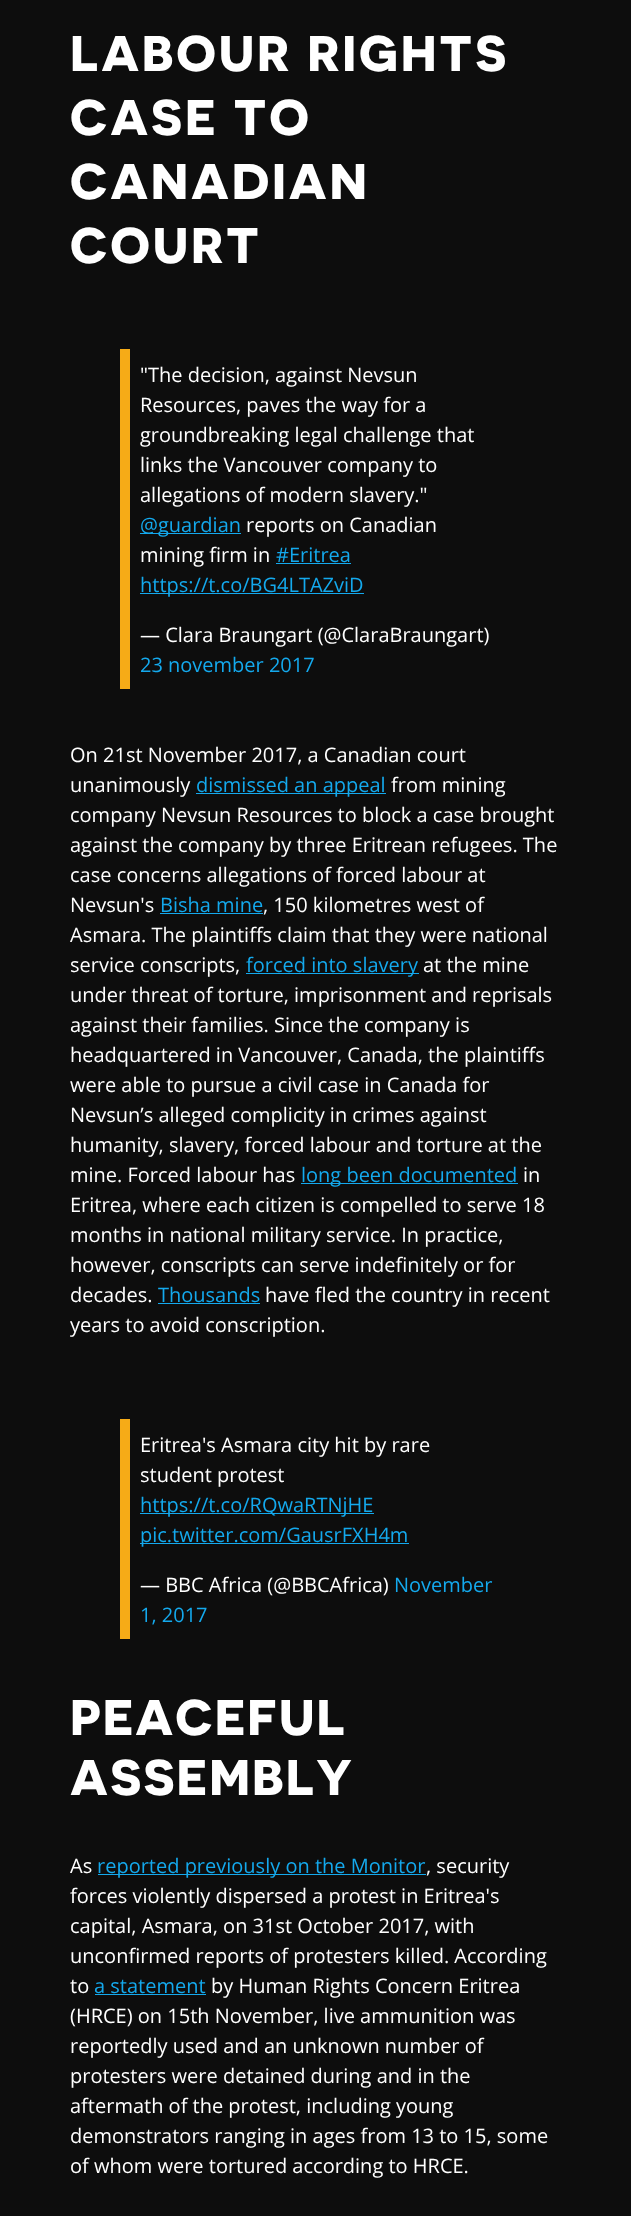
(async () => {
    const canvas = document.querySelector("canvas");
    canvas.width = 631;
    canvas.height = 2216;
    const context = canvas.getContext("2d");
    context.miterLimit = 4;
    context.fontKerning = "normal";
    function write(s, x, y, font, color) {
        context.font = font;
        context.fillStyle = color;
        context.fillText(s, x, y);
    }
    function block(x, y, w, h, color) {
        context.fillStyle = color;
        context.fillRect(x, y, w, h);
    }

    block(0, 0, 631, 2216, "rgb(13, 13, 13)");
    context.letterSpacing = "2.75px";
    write("LABOUR RIGHTS", 70, 71, "50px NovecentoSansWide", "rgb(255, 255, 255)");
    write("CASE TO", 70, 135, "50px NovecentoSansWide", "rgb(255, 255, 255)");
    write("CANADIAN", 70, 199, "50px NovecentoSansWide", "rgb(255, 255, 255)");
    write("COURT", 70, 263, "50px NovecentoSansWide", "rgb(255, 255, 255)");
    block(120, 349, 10, 340, "rgb(246, 171, 23)");
    context.letterSpacing = "0px";
    write("\"The decision, against Nevsun", 140, 382, "20px Open Sans", "rgb(255, 255, 255)");
    write("Resources, paves the way for a", 140, 412, "20px Open Sans", "rgb(255, 255, 255)");
    write("groundbreaking legal challenge that", 140, 442, "20px Open Sans", "rgb(255, 255, 255)");
    write("links the Vancouver company to", 140, 472, "20px Open Sans", "rgb(255, 255, 255)");
    write("allegations of modern slavery.\"", 140, 502, "20px Open Sans", "rgb(255, 255, 255)");
    block(140, 533, 101, 1, "rgb(20, 169, 237)");
    write("@guardian", 140, 532, "20px Open Sans", "rgb(20, 169, 237)");
    write("reports on Canadian", 246, 532, "20px Open Sans", "rgb(255, 255, 255)");
    write("mining firm in", 140, 562, "20px Open Sans", "rgb(255, 255, 255)");
    write("#Eritrea", 276, 562, "20px Open Sans", "rgb(20, 169, 237)");
    block(276, 563, 75, 1, "rgb(20, 169, 237)");
    block(140, 593, 224, 1, "rgb(20, 169, 237)");
    write("https://t.co/BG4LTAZviD", 140, 592, "20px Open Sans", "rgb(20, 169, 237)");
    write("— Clara Braungart (@ClaraBraungart)", 140, 642, "20px Open Sans", "rgb(255, 255, 255)");
    write("23 november 2017", 140, 672, "20px Open Sans", "rgb(20, 169, 237)");
    write("On 21st November 2017, a Canadian court", 70, 762, "20px Open Sans", "rgb(255, 255, 255)");
    write("unanimously", 70, 792, "20px Open Sans", "rgb(255, 255, 255)");
    block(196, 793, 190, 1, "rgb(20, 169, 237)");
    write("dismissed an appeal", 196, 792, "20px Open Sans", "rgb(20, 169, 237)");
    write("from mining", 391, 792, "20px Open Sans", "rgb(255, 255, 255)");
    write("company Nevsun Resources to block a case brought", 70, 822, "20px Open Sans", "rgb(255, 255, 255)");
    write("against the company by three Eritrean refugees. The", 70, 852, "20px Open Sans", "rgb(255, 255, 255)");
    write("case concerns allegations of forced labour at", 70, 882, "20px Open Sans", "rgb(255, 255, 255)");
    write("Nevsun's", 70, 912, "20px Open Sans", "rgb(255, 255, 255)");
    write("Bisha mine", 160, 912, "20px Open Sans", "rgb(20, 169, 237)");
    block(160, 913, 103, 1, "rgb(20, 169, 237)");
    write(", 150 kilometres west of", 263, 912, "20px Open Sans", "rgb(255, 255, 255)");
    write("Asmara. The plaintiffs claim that they were national", 70, 942, "20px Open Sans", "rgb(255, 255, 255)");
    write("service conscripts,", 70, 972, "20px Open Sans", "rgb(255, 255, 255)");
    block(246, 973, 173, 1, "rgb(20, 169, 237)");
    write("forced into slavery", 246, 972, "20px Open Sans", "rgb(20, 169, 237)");
    write("at the mine", 423, 972, "20px Open Sans", "rgb(255, 255, 255)");
    write("under threat of torture, imprisonment and reprisals", 70, 1002, "20px Open Sans", "rgb(255, 255, 255)");
    write("against their families. Since the company is", 70, 1032, "20px Open Sans", "rgb(255, 255, 255)");
    write("headquartered in Vancouver, Canada, the plaintiffs", 70, 1062, "20px Open Sans", "rgb(255, 255, 255)");
    write("were able to pursue a civil case in Canada for", 70, 1092, "20px Open Sans", "rgb(255, 255, 255)");
    write("Nevsun’s alleged complicity in crimes against", 70, 1122, "20px Open Sans", "rgb(255, 255, 255)");
    write("humanity, slavery, forced labour and torture at the", 70, 1152, "20px Open Sans", "rgb(255, 255, 255)");
    write("mine. Forced labour has", 70, 1182, "20px Open Sans", "rgb(255, 255, 255)");
    block(301, 1183, 217, 1, "rgb(20, 169, 237)");
    write("long been documented", 301, 1182, "20px Open Sans", "rgb(20, 169, 237)");
    write("in", 523, 1182, "20px Open Sans", "rgb(255, 255, 255)");
    write("Eritrea, where each citizen is compelled to serve 18", 70, 1212, "20px Open Sans", "rgb(255, 255, 255)");
    write("months in national military service. In practice,", 70, 1242, "20px Open Sans", "rgb(255, 255, 255)");
    write("however, conscripts can serve indefinitely or for", 70, 1272, "20px Open Sans", "rgb(255, 255, 255)");
    write("decades.", 70, 1302, "20px Open Sans", "rgb(255, 255, 255)");
    write("Thousands", 158, 1302, "20px Open Sans", "rgb(20, 169, 237)");
    block(158, 1303, 102, 1, "rgb(20, 169, 237)");
    write("have fled the country in recent", 265, 1302, "20px Open Sans", "rgb(255, 255, 255)");
    write("years to avoid conscription.", 70, 1332, "20px Open Sans", "rgb(255, 255, 255)");
    block(120, 1419, 10, 220, "rgb(246, 171, 23)");
    write("Eritrea's Asmara city hit by rare", 140, 1452, "20px Open Sans", "rgb(255, 255, 255)");
    write("student protest", 140, 1482, "20px Open Sans", "rgb(255, 255, 255)");
    block(140, 1513, 234, 1, "rgb(20, 169, 237)");
    write("https://t.co/RQwaRTNjHE", 140, 1512, "20px Open Sans", "rgb(20, 169, 237)");
    block(140, 1543, 269, 1, "rgb(20, 169, 237)");
    write("pic.twitter.com/GausrFXH4m", 140, 1542, "20px Open Sans", "rgb(20, 169, 237)");
    write("— BBC Africa (@BBCAfrica)", 140, 1592, "20px Open Sans", "rgb(255, 255, 255)");
    write("November", 394, 1592, "20px Open Sans", "rgb(20, 169, 237)");
    write("1, 2017", 140, 1622, "20px Open Sans", "rgb(20, 169, 237)");
    context.letterSpacing = "2px";
    write("PEACEFUL", 70, 1735, "50px NovecentoSansWide", "rgb(255, 255, 255)");
    write("ASSEMBLY", 70, 1795, "50px NovecentoSansWide", "rgb(255, 255, 255)");
    context.letterSpacing = "0px";
    write("As", 70, 1873, "20px Open Sans", "rgb(255, 255, 255)");
    block(98, 1874, 328, 1, "rgb(20, 169, 237)");
    write("reported previously on the Monitor", 97, 1873, "20px Open Sans", "rgb(20, 169, 237)");
    write(", security", 426, 1873, "20px Open Sans", "rgb(255, 255, 255)");
    write("forces violently dispersed a protest in Eritrea's", 70, 1903, "20px Open Sans", "rgb(255, 255, 255)");
    write("capital, Asmara, on 31st October 2017, with", 70, 1933, "20px Open Sans", "rgb(255, 255, 255)");
    write("unconfirmed reports of protesters killed. According", 70, 1963, "20px Open Sans", "rgb(255, 255, 255)");
    write("to", 70, 1993, "20px Open Sans", "rgb(255, 255, 255)");
    write("a statement", 94, 1993, "20px Open Sans", "rgb(20, 169, 237)");
    block(95, 1994, 111, 1, "rgb(20, 169, 237)");
    write("by Human Rights Concern Eritrea", 211, 1993, "20px Open Sans", "rgb(255, 255, 255)");
    write("(HRCE) on 15th November, live ammunition was", 70, 2023, "20px Open Sans", "rgb(255, 255, 255)");
    write("reportedly used and an unknown number of", 70, 2053, "20px Open Sans", "rgb(255, 255, 255)");
    write("protesters were detained during and in the", 70, 2083, "20px Open Sans", "rgb(255, 255, 255)");
    write("aftermath of the protest, including young", 70, 2113, "20px Open Sans", "rgb(255, 255, 255)");
    write("demonstrators ranging in ages from 13 to 15, some", 70, 2143, "20px Open Sans", "rgb(255, 255, 255)");
    write("of whom were tortured according to HRCE.", 70, 2173, "20px Open Sans", "rgb(255, 255, 255)");
})();
